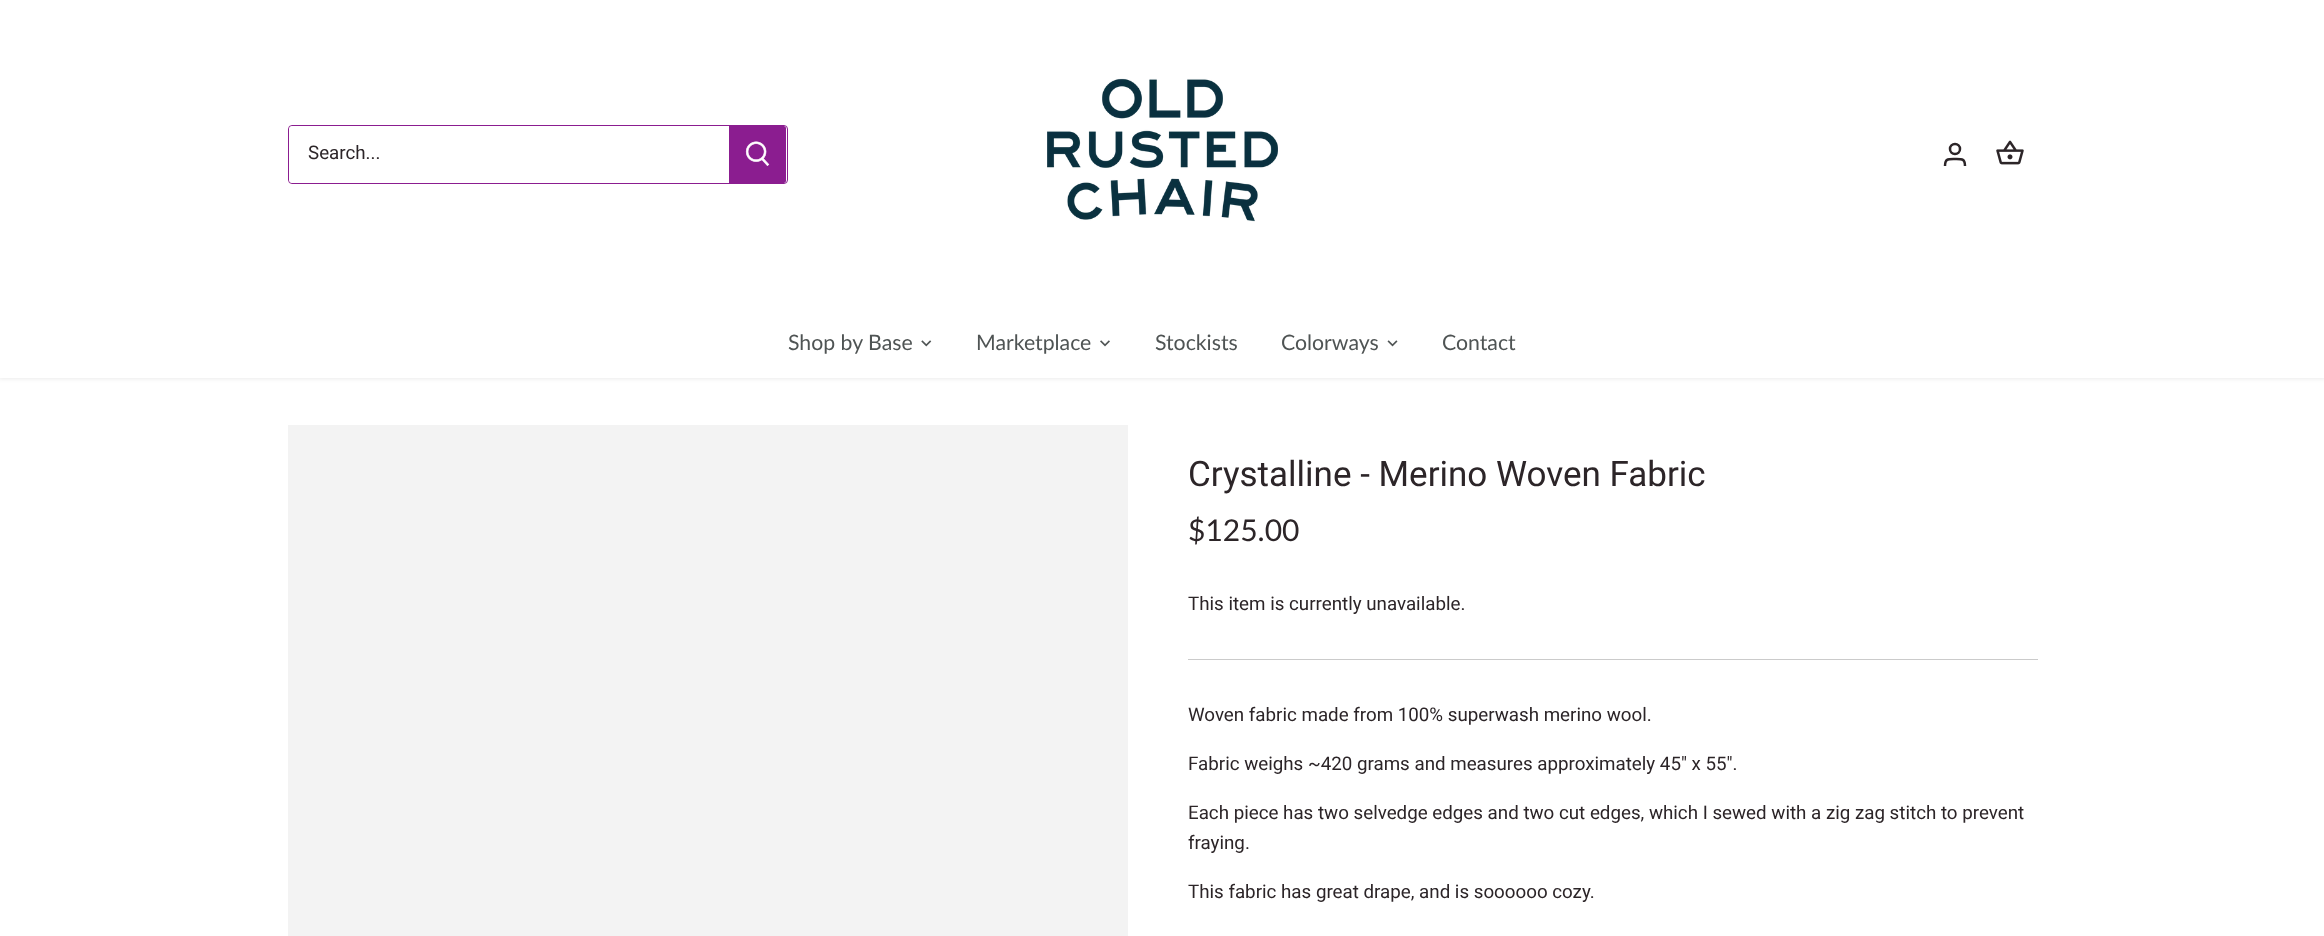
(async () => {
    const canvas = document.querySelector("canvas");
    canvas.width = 2324;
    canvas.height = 936;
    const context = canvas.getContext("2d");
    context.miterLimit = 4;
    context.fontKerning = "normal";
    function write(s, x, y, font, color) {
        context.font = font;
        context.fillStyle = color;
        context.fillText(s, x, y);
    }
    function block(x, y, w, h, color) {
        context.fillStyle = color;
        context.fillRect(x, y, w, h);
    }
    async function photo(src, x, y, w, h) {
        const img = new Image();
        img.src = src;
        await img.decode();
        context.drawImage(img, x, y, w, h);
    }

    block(0, 0, 2324, 936, "rgb(255, 255, 255)");
    context.fillStyle = "rgba(0, 0, 0, 0.08)";
    context.filter = "blur(2px)";
    context.beginPath();
    context.rect(-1, -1, 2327, 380);
    context.fill();
    context.filter = "none";
    block(0, 0, 2324, 378, "rgb(255, 255, 255)");
    context.beginPath();
    context.roundRect(288.5, 125.5, 499, 58, 3.5);
    context.strokeStyle = "rgb(139, 29, 144)";
    context.stroke();
    context.beginPath();
    context.roundRect(289, 126, 441, 57, [4, 0, 0, 4]);
    context.fill();
    write("Search...", 308, 159, "18.75px Roboto", "rgb(44, 37, 40)");
    context.fillStyle = "rgb(139, 29, 144)";
    context.beginPath();
    context.roundRect(729, 126, 57, 57, [0, 2.5, 2.5, 0]);
    context.fill();
    await photo("media/1.png", 745, 141, 25, 25);
    await photo("media/2.png", 1047, 78, 231, 144);
    context.beginPath();
    context.arc(1955, 149, 5, 0, Math.PI * 2);
    context.strokeStyle = "rgb(44, 37, 40)";
    context.lineWidth = 2.5;
    context.stroke();
    context.beginPath();
    context.moveTo(1965, 166);
    context.bezierCurveTo(1965, 158.5, 1962, 159, 1955, 159);
    context.bezierCurveTo(1948, 159, 1945, 158.5, 1945, 166);
    context.stroke();
    await photo("media/3.png", 1996, 140, 28, 25);
    write("Shop by Base", 788, 350, "21.25px Lato", "rgb(79, 84, 84)");
    await photo("media/4.png", 921, 340, 11, 7);
    write("Marketplace", 976, 350, "21.25px Lato", "rgb(79, 84, 84)");
    await photo("media/5.png", 1100, 340, 10, 7);
    write("Stockists", 1155, 350, "21.25px Lato", "rgb(79, 84, 84)");
    write("Colorways", 1281, 350, "21.25px Lato", "rgb(79, 84, 84)");
    await photo("media/6.png", 1387, 340, 11, 7);
    write("Contact", 1442, 350, "21.25px Lato", "rgb(79, 84, 84)");
    block(288, 425, 840, 511, "rgb(243, 243, 243)");
    write("Crystalline - Merino Woven Fabric", 1188, 486, "35px Roboto", "rgb(44, 37, 40)");
    write("$125.00", 1188, 541, "30px Lato", "rgb(44, 37, 40)");
    write("This item is currently unavailable.", 1188, 610, "18.75px Roboto", "rgb(44, 37, 40)");
    block(1188, 659, 850, 1, "rgb(203, 203, 203)");
    write("Woven fabric made from 100% superwash merino wool.", 1188, 721, "18.75px Roboto", "rgb(44, 37, 40)");
    write("Fabric weighs ~420 grams and measures approximately 45\" x 55\".", 1188, 770, "18.75px Roboto", "rgb(44, 37, 40)");
    write("Each piece has two selvedge edges and two cut edges, which I sewed with a zig zag stitch to prevent", 1188, 819, "18.75px Roboto", "rgb(44, 37, 40)");
    write("fraying.", 1188, 849, "18.75px Roboto", "rgb(44, 37, 40)");
    write("This fabric has great drape, and is soooooo cozy.", 1188, 898, "18.75px Roboto", "rgb(44, 37, 40)");
})();
